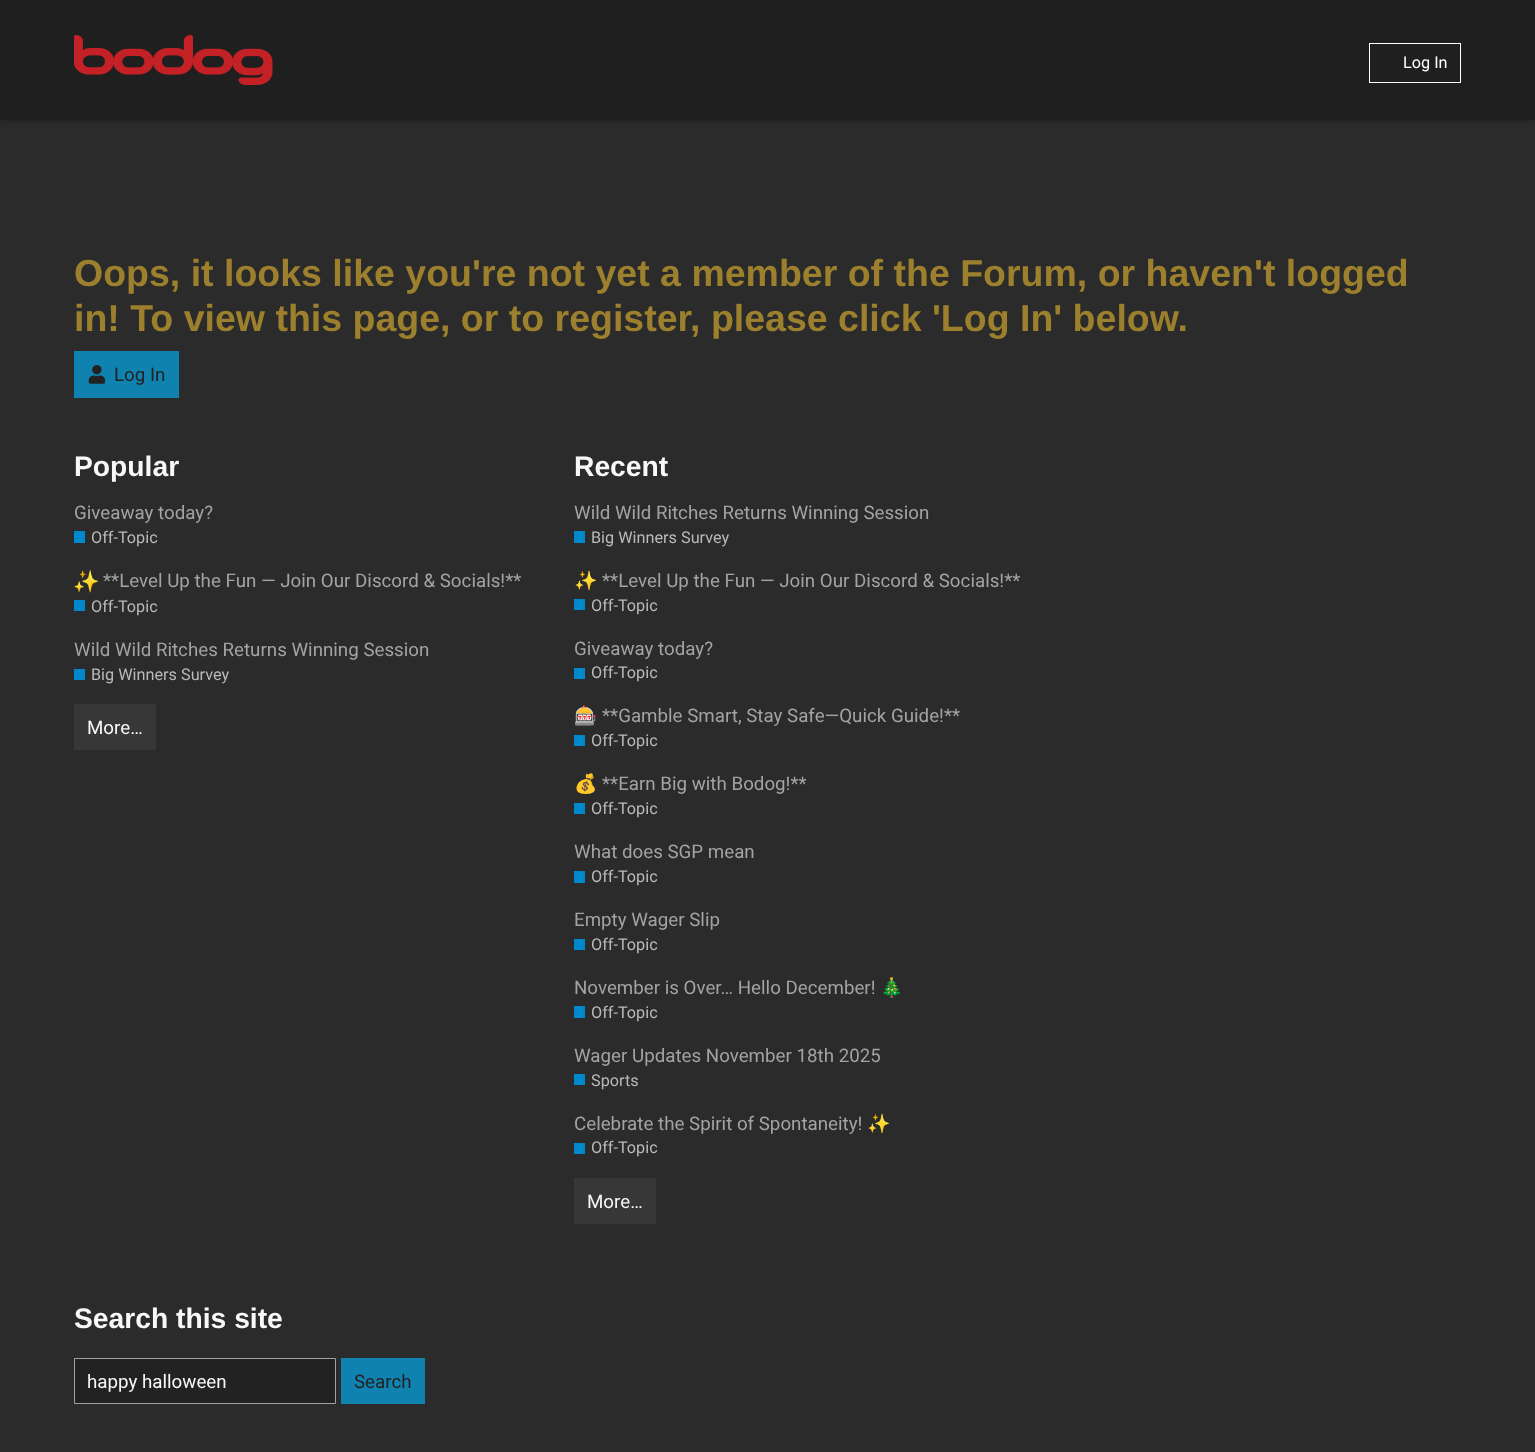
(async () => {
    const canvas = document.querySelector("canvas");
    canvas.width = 1535;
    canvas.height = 1452;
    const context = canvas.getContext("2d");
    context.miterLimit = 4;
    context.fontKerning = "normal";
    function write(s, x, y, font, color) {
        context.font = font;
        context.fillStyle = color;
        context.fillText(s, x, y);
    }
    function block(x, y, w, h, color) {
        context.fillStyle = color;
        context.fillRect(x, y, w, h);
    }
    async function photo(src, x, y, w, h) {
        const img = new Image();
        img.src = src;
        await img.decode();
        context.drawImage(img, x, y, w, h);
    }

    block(0, 0, 1535, 1452, "rgb(43, 43, 43)");
    context.fillStyle = "rgba(0, 0, 0, 0.25)";
    context.filter = "blur(2.5px)";
    context.beginPath();
    context.rect(1, 4, 1533, 117);
    context.fill();
    context.filter = "none";
    block(0, 0, 1535, 120, "rgb(31, 31, 31)");
    await photo("media/1.png", 74, 35, 199, 50);
    context.strokeStyle = "rgb(255, 255, 255)";
    context.strokeRect(1369.5, 43.5, 91, 39);
    write("Log In", 1403, 68, "16.25px Roboto", "rgb(255, 255, 255)");
    write("Oops, it looks like you're not yet a member of the Forum, or haven't logged", 74, 286, "bold 37.5px Liberation Sans", "rgb(156, 128, 45)");
    write("in! To view this page, or to register, please click 'Log In' below.", 74, 331, "bold 37.5px Liberation Sans", "rgb(156, 128, 45)");
    block(74, 351, 105, 47, "rgb(15, 130, 175)");
    await photo("media/2.png", 88, 365, 18, 19);
    write("Log In", 114, 381, "18.75px Roboto", "rgb(34, 34, 34)");
    write("Popular", 74, 476, "bold 28.25px Liberation Sans", "rgb(248, 248, 248)");
    write("Giveaway today?", 74, 519, "18.75px Roboto", "rgb(163, 163, 163)");
    block(74, 531, 11, 12, "rgb(0, 136, 204)");
    write("Off-Topic", 91, 543, "16.25px Roboto", "rgb(186, 186, 186)");
    await photo("media/3.png", 74, 570, 24, 23);
    write("**Level Up the Fun — Join Our Discord & Socials!**", 103, 587, "18.75px Roboto", "rgb(163, 163, 163)");
    block(74, 600, 11, 11, "rgb(0, 136, 204)");
    write("Off-Topic", 91, 612, "16.25px Roboto", "rgb(186, 186, 186)");
    write("Wild Wild Ritches Returns Winning Session", 74, 656, "18.75px Roboto", "rgb(163, 163, 163)");
    block(74, 669, 11, 11, "rgb(0, 136, 204)");
    write("Big Winners Survey", 91, 680, "16.25px Roboto", "rgb(186, 186, 186)");
    block(74, 704, 82, 46, "rgb(55, 55, 55)");
    write("More…", 87, 734, "18.75px Roboto", "rgb(248, 248, 248)");
    write("Recent", 574, 476, "bold 28.25px Liberation Sans", "rgb(248, 248, 248)");
    write("Wild Wild Ritches Returns Winning Session", 574, 519, "18.75px Roboto", "rgb(163, 163, 163)");
    block(574, 531, 11, 12, "rgb(0, 136, 204)");
    write("Big Winners Survey", 591, 543, "16.25px Roboto", "rgb(186, 186, 186)");
    write("✨", 574, 587, "18.75px Noto Color Emoji", "rgb(163, 163, 163)");
    write("**Level Up the Fun — Join Our Discord & Socials!**", 602, 587, "18.75px Roboto", "rgb(163, 163, 163)");
    block(574, 599, 11, 11, "rgb(0, 136, 204)");
    write("Off-Topic", 591, 611, "16.25px Roboto", "rgb(186, 186, 186)");
    write("Giveaway today?", 574, 655, "18.75px Roboto", "rgb(163, 163, 163)");
    block(574, 668, 11, 11, "rgb(0, 136, 204)");
    write("Off-Topic", 591, 678, "16.25px Roboto", "rgb(186, 186, 186)");
    write("🎰", 574, 722, "18.75px Noto Color Emoji", "rgb(163, 163, 163)");
    write("**Gamble Smart, Stay Safe—Quick Guide!**", 602, 722, "18.75px Roboto", "rgb(163, 163, 163)");
    block(574, 735, 11, 11, "rgb(0, 136, 204)");
    write("Off-Topic", 591, 746, "16.25px Roboto", "rgb(186, 186, 186)");
    write("💰", 574, 790, "18.75px Noto Color Emoji", "rgb(163, 163, 163)");
    write("**Earn Big with Bodog!**", 602, 790, "18.75px Roboto", "rgb(163, 163, 163)");
    block(574, 803, 11, 11, "rgb(0, 136, 204)");
    write("Off-Topic", 591, 814, "16.25px Roboto", "rgb(186, 186, 186)");
    write("What does SGP mean", 574, 858, "18.75px Roboto", "rgb(163, 163, 163)");
    block(574, 871, 11, 12, "rgb(0, 136, 204)");
    write("Off-Topic", 591, 882, "16.25px Roboto", "rgb(186, 186, 186)");
    write("Empty Wager Slip", 574, 926, "18.75px Roboto", "rgb(163, 163, 163)");
    block(574, 939, 11, 11, "rgb(0, 136, 204)");
    write("Off-Topic", 591, 950, "16.25px Roboto", "rgb(186, 186, 186)");
    write("November is Over… Hello December!", 574, 994, "18.75px Roboto", "rgb(163, 163, 163)");
    write("🎄", 880, 994, "18.75px Noto Color Emoji", "rgb(163, 163, 163)");
    block(574, 1006, 11, 12, "rgb(0, 136, 204)");
    write("Off-Topic", 591, 1018, "16.25px Roboto", "rgb(186, 186, 186)");
    write("Wager Updates November 18th 2025", 574, 1062, "18.75px Roboto", "rgb(163, 163, 163)");
    block(574, 1074, 11, 11, "rgb(0, 136, 204)");
    write("Sports", 591, 1086, "16.25px Roboto", "rgb(186, 186, 186)");
    write("Celebrate the Spirit of Spontaneity!", 574, 1130, "18.75px Roboto", "rgb(163, 163, 163)");
    write("✨", 867, 1130, "18.75px Noto Color Emoji", "rgb(163, 163, 163)");
    block(574, 1143, 11, 11, "rgb(0, 136, 204)");
    write("Off-Topic", 591, 1153, "16.25px Roboto", "rgb(186, 186, 186)");
    block(574, 1178, 82, 46, "rgb(55, 55, 55)");
    write("More…", 587, 1208, "18.75px Roboto", "rgb(248, 248, 248)");
    write("Search this site", 74, 1328, "bold 28.25px Liberation Sans", "rgb(248, 248, 248)");
    context.fillStyle = "rgb(34, 34, 34)";
    context.beginPath();
    context.rect(74.5, 1358.5, 261, 45);
    context.fill();
    context.strokeStyle = "rgb(161, 161, 161)";
    context.stroke();
    write("happy halloween", 87, 1388, "18.75px Roboto", "rgb(248, 248, 248)");
    block(341, 1358, 84, 46, "rgb(15, 130, 175)");
    write("Search", 354, 1388, "18.75px Roboto", "rgb(34, 34, 34)");
})();
